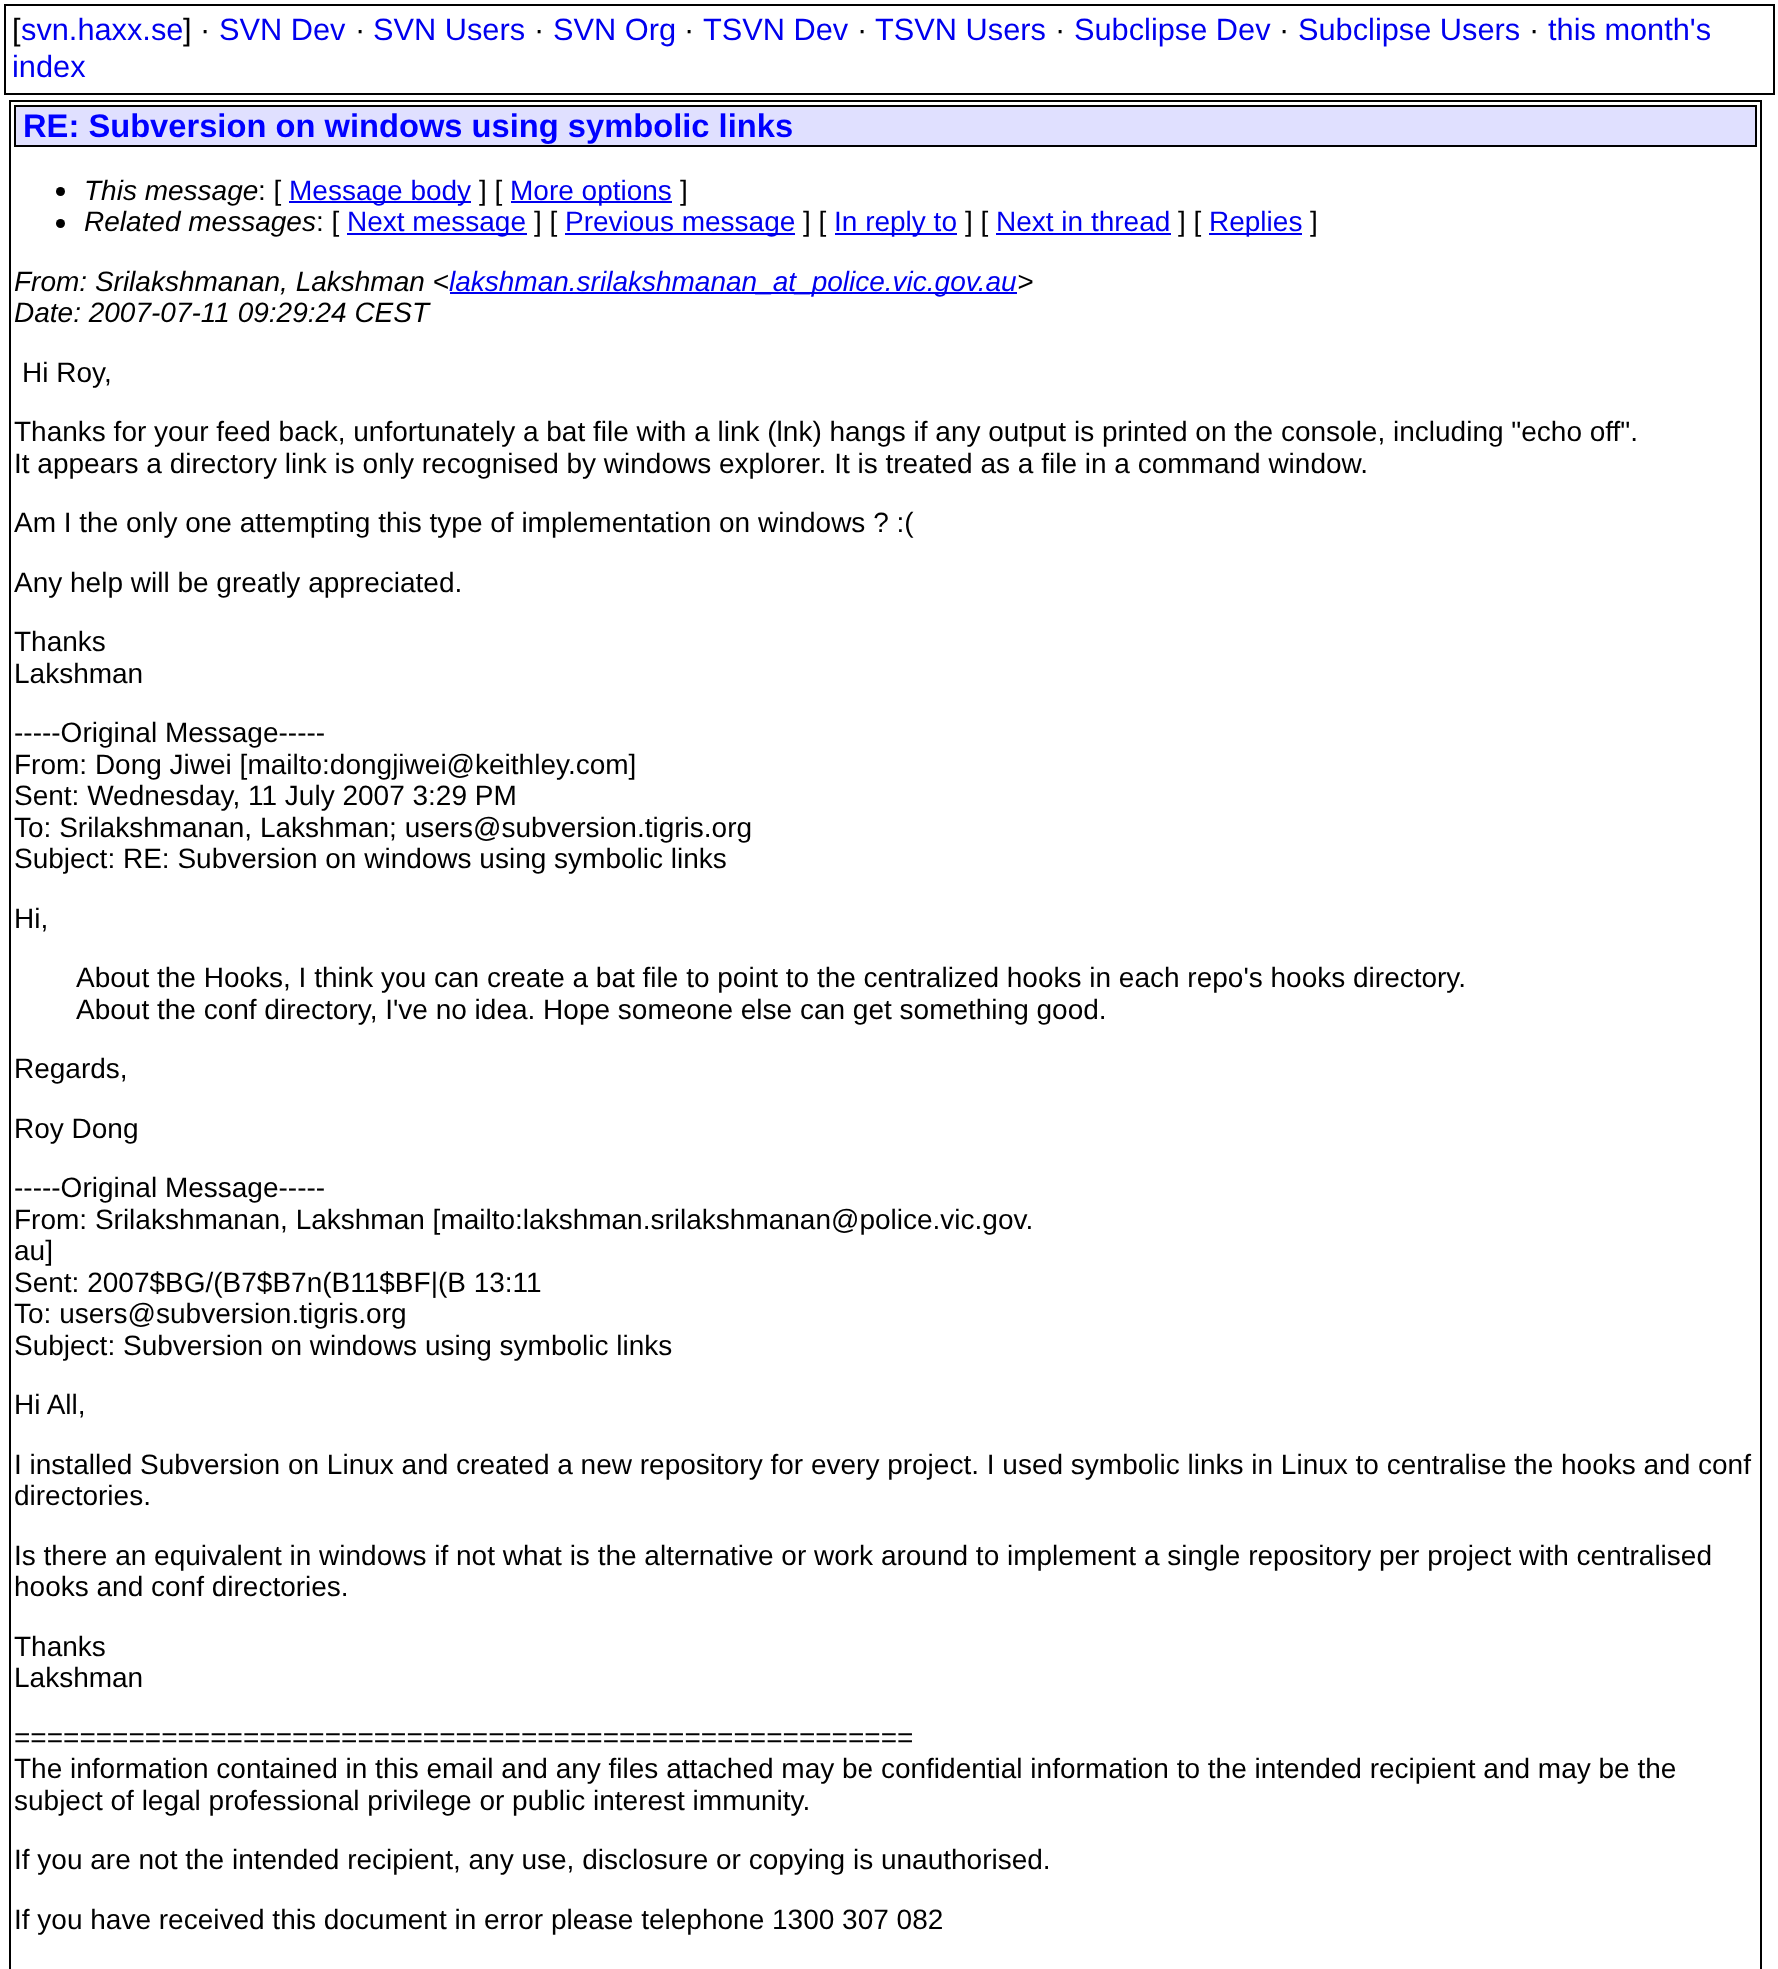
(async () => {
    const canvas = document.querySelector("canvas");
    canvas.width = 1778;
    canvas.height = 1969;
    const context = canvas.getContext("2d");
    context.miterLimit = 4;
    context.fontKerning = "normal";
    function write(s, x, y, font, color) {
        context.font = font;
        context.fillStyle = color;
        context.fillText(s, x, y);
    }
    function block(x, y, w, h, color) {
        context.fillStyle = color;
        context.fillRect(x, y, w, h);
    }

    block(0, 0, 1778, 1969, "rgb(255, 255, 255)");
    context.strokeStyle = "rgb(0, 0, 0)";
    context.lineWidth = 2;
    context.strokeRect(5, 5, 1769, 89);
    write("[", 12, 40, "30.75px Liberation Sans", "rgb(0, 0, 0)");
    write("svn.haxx.se", 21, 40, "30.75px Liberation Sans", "rgb(0, 0, 238)");
    write("] ·", 183, 40, "30.75px Liberation Sans", "rgb(0, 0, 0)");
    write("SVN Dev", 219, 40, "30.75px Liberation Sans", "rgb(0, 0, 238)");
    write("·", 355, 40, "30.75px Liberation Sans", "rgb(0, 0, 0)");
    write("SVN Users", 373, 40, "30.75px Liberation Sans", "rgb(0, 0, 238)");
    write("·", 534, 40, "30.75px Liberation Sans", "rgb(0, 0, 0)");
    write("SVN Org", 553, 40, "30.75px Liberation Sans", "rgb(0, 0, 238)");
    write("·", 684, 40, "30.75px Liberation Sans", "rgb(0, 0, 0)");
    write("TSVN Dev", 703, 40, "30.75px Liberation Sans", "rgb(0, 0, 238)");
    write("·", 857, 40, "30.75px Liberation Sans", "rgb(0, 0, 0)");
    write("TSVN Users", 875, 40, "30.75px Liberation Sans", "rgb(0, 0, 238)");
    write("·", 1055, 40, "30.75px Liberation Sans", "rgb(0, 0, 0)");
    write("Subclipse Dev", 1074, 40, "30.75px Liberation Sans", "rgb(0, 0, 238)");
    write("·", 1279, 40, "30.75px Liberation Sans", "rgb(0, 0, 0)");
    write("Subclipse Users", 1298, 40, "30.75px Liberation Sans", "rgb(0, 0, 238)");
    write("·", 1529, 40, "30.75px Liberation Sans", "rgb(0, 0, 0)");
    write("this month's", 1548, 40, "30.75px Liberation Sans", "rgb(0, 0, 238)");
    write("index", 12, 77, "30.75px Liberation Sans", "rgb(0, 0, 238)");
    context.strokeRect(10, 101, 1751, 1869);
    context.fillStyle = "rgb(224, 224, 255)";
    context.beginPath();
    context.rect(15, 106, 1741, 40);
    context.fill();
    context.stroke();
    write("RE: Subversion on windows using symbolic links", 23, 137, "bold 32.7px Liberation Sans", "rgb(0, 0, 255)");
    context.fillStyle = "rgb(0, 0, 0)";
    context.beginPath();
    context.arc(60.5, 191.5, 4.5, 0, Math.PI * 2);
    context.fill();
    write("This message", 84, 200, "italic 28px Liberation Sans", "rgb(0, 0, 0)");
    write(": [", 258, 200, "28px Liberation Sans", "rgb(0, 0, 0)");
    block(289, 201, 182, 2, "rgb(0, 0, 238)");
    write("Message body", 289, 200, "28px Liberation Sans", "rgb(0, 0, 238)");
    write("] [", 479, 200, "28px Liberation Sans", "rgb(0, 0, 0)");
    block(511, 201, 161, 2, "rgb(0, 0, 238)");
    write("More options", 510, 200, "28px Liberation Sans", "rgb(0, 0, 238)");
    write("]", 680, 200, "28px Liberation Sans", "rgb(0, 0, 0)");
    context.beginPath();
    context.arc(60.5, 223.5, 4.5, 0, Math.PI * 2);
    context.fill();
    write("Related messages", 84, 231, "italic 28px Liberation Sans", "rgb(0, 0, 0)");
    write(": [", 316, 231, "28px Liberation Sans", "rgb(0, 0, 0)");
    block(347, 233, 180, 2, "rgb(0, 0, 238)");
    write("Next message", 347, 231, "28px Liberation Sans", "rgb(0, 0, 238)");
    write("] [", 534, 231, "28px Liberation Sans", "rgb(0, 0, 0)");
    block(565, 233, 230, 2, "rgb(0, 0, 238)");
    write("Previous message", 565, 231, "28px Liberation Sans", "rgb(0, 0, 238)");
    write("] [", 803, 231, "28px Liberation Sans", "rgb(0, 0, 0)");
    block(835, 233, 122, 2, "rgb(0, 0, 238)");
    write("In reply to", 834, 231, "28px Liberation Sans", "rgb(0, 0, 238)");
    write("] [", 965, 231, "28px Liberation Sans", "rgb(0, 0, 0)");
    write("Next in thread", 996, 231, "28px Liberation Sans", "rgb(0, 0, 238)");
    block(996, 233, 175, 2, "rgb(0, 0, 238)");
    write("] [", 1178, 231, "28px Liberation Sans", "rgb(0, 0, 0)");
    block(1209, 233, 93, 2, "rgb(0, 0, 238)");
    write("Replies", 1209, 231, "28px Liberation Sans", "rgb(0, 0, 238)");
    write("]", 1310, 231, "28px Liberation Sans", "rgb(0, 0, 0)");
    write("From: Srilakshmanan, Lakshman <", 14, 291, "italic 28px Liberation Sans", "rgb(0, 0, 0)");
    block(450, 292, 567, 2, "rgb(0, 0, 238)");
    write("lakshman.srilakshmanan_at_police.vic.gov.au", 449, 291, "italic 28px Liberation Sans", "rgb(0, 0, 238)");
    write(">", 1017, 291, "italic 28px Liberation Sans", "rgb(0, 0, 0)");
    write("Date: 2007-07-11 09:29:24 CEST", 14, 322, "italic 28px Liberation Sans", "rgb(0, 0, 0)");
    write("Hi Roy,", 22, 382, "28px Liberation Sans", "rgb(0, 0, 0)");
    write("Thanks for your feed back, unfortunately a bat file with a link (lnk) hangs if any output is printed on the console, including \"echo off\".", 14, 441, "28px Liberation Sans", "rgb(0, 0, 0)");
    write("It appears a directory link is only recognised by windows explorer. It is treated as a file in a command window.", 14, 473, "28px Liberation Sans", "rgb(0, 0, 0)");
    write("Am I the only one attempting this type of implementation on windows ? :(", 14, 532, "28px Liberation Sans", "rgb(0, 0, 0)");
    write("Any help will be greatly appreciated.", 14, 592, "28px Liberation Sans", "rgb(0, 0, 0)");
    write("Thanks", 14, 651, "28px Liberation Sans", "rgb(0, 0, 0)");
    write("Lakshman", 14, 683, "28px Liberation Sans", "rgb(0, 0, 0)");
    write("-----Original Message-----", 14, 742, "28px Liberation Sans", "rgb(0, 0, 0)");
    write("From: Dong Jiwei [mailto:dongjiwei@keithley.com]", 14, 774, "28px Liberation Sans", "rgb(0, 0, 0)");
    write("Sent: Wednesday, 11 July 2007 3:29 PM", 14, 805, "28px Liberation Sans", "rgb(0, 0, 0)");
    write("To: Srilakshmanan, Lakshman; users@subversion.tigris.org", 14, 837, "28px Liberation Sans", "rgb(0, 0, 0)");
    write("Subject: RE: Subversion on windows using symbolic links", 14, 868, "28px Liberation Sans", "rgb(0, 0, 0)");
    write("Hi,", 14, 928, "28px Liberation Sans", "rgb(0, 0, 0)");
    write("About the Hooks, I think you can create a bat file to point to the centralized hooks in each repo's hooks directory.", 76, 987, "28px Liberation Sans", "rgb(0, 0, 0)");
    write("About the conf directory, I've no idea. Hope someone else can get something good.", 76, 1019, "28px Liberation Sans", "rgb(0, 0, 0)");
    write("Regards,", 14, 1078, "28px Liberation Sans", "rgb(0, 0, 0)");
    write("Roy Dong", 14, 1138, "28px Liberation Sans", "rgb(0, 0, 0)");
    write("-----Original Message-----", 14, 1197, "28px Liberation Sans", "rgb(0, 0, 0)");
    write("From: Srilakshmanan, Lakshman [mailto:lakshman.srilakshmanan@police.vic.gov.", 14, 1229, "28px Liberation Sans", "rgb(0, 0, 0)");
    write("au]", 14, 1260, "28px Liberation Sans", "rgb(0, 0, 0)");
    write("Sent: 2007$BG/(B7$B7n(B11$BF|(B 13:11", 14, 1292, "28px Liberation Sans", "rgb(0, 0, 0)");
    write("To: users@subversion.tigris.org", 14, 1323, "28px Liberation Sans", "rgb(0, 0, 0)");
    write("Subject: Subversion on windows using symbolic links", 14, 1355, "28px Liberation Sans", "rgb(0, 0, 0)");
    write("Hi All,", 14, 1414, "28px Liberation Sans", "rgb(0, 0, 0)");
    write("I installed Subversion on Linux and created a new repository for every project. I used symbolic links in Linux to centralise the hooks and conf", 14, 1474, "28px Liberation Sans", "rgb(0, 0, 0)");
    write("directories.", 14, 1505, "28px Liberation Sans", "rgb(0, 0, 0)");
    write("Is there an equivalent in windows if not what is the alternative or work around to implement a single repository per project with centralised", 14, 1565, "28px Liberation Sans", "rgb(0, 0, 0)");
    write("hooks and conf directories.", 14, 1596, "28px Liberation Sans", "rgb(0, 0, 0)");
    write("Thanks", 14, 1656, "28px Liberation Sans", "rgb(0, 0, 0)");
    write("Lakshman", 14, 1687, "28px Liberation Sans", "rgb(0, 0, 0)");
    write("=======================================================", 14, 1747, "28px Liberation Sans", "rgb(0, 0, 0)");
    write("The information contained in this email and any files attached may be confidential information to the intended recipient and may be the", 14, 1778, "28px Liberation Sans", "rgb(0, 0, 0)");
    write("subject of legal professional privilege or public interest immunity.", 14, 1810, "28px Liberation Sans", "rgb(0, 0, 0)");
    write("If you are not the intended recipient, any use, disclosure or copying is unauthorised.", 14, 1869, "28px Liberation Sans", "rgb(0, 0, 0)");
    write("If you have received this document in error please telephone 1300 307 082", 14, 1929, "28px Liberation Sans", "rgb(0, 0, 0)");
})();
